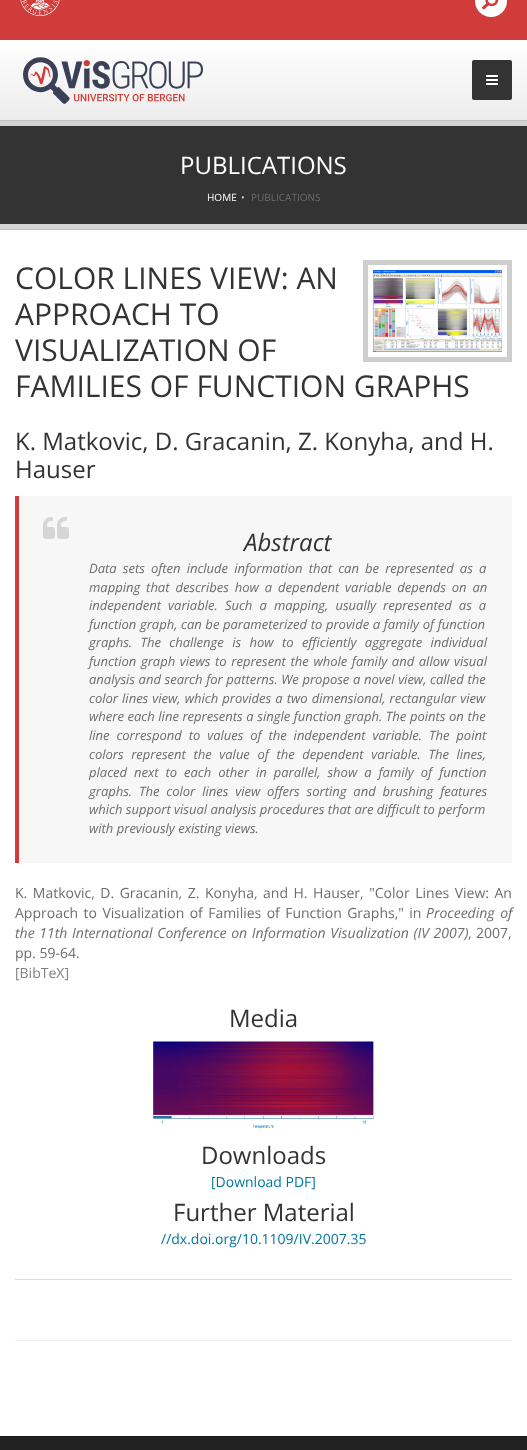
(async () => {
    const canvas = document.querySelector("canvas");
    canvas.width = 527;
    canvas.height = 1450;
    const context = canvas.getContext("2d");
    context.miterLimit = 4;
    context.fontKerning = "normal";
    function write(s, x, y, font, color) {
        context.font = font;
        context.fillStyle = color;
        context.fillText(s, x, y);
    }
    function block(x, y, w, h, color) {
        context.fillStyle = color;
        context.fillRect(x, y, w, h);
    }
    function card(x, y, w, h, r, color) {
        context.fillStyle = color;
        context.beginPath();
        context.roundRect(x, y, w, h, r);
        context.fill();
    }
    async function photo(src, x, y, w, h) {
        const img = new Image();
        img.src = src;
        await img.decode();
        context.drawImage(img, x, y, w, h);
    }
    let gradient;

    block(0, 0, 527, 1450, "rgb(255, 255, 255)");
    block(0, 0, 527, 40, "rgb(207, 60, 58)");
    await photo("media/1.png", 20, 0, 40, 16);
    await photo("media/2.png", 475, 0, 32, 17);
    gradient = context.createLinearGradient(264, 40, 264, 120);
    gradient.addColorStop(0, "rgb(255, 255, 255)");
    gradient.addColorStop(1, "rgb(236, 236, 236)");
    context.fillStyle = gradient;
    context.fillRect(0, 51, 527, 69);
    await photo("media/3.png", 23, 57, 180, 47);
    card(472, 60, 40, 40, 2, "rgb(51, 51, 51)");
    await photo("media/4.png", 486, 75, 12, 10);
    block(0, 126, 527, 98, "rgb(51, 51, 51)");
    block(0, 121, 527, 5, "rgb(212, 212, 212)");
    block(0, 224, 527, 5, "rgb(212, 212, 212)");
    block(0, 120, 527, 1, "rgb(191, 191, 191)");
    write("PUBLICATIONS", 180, 174, "24px Open Sans", "rgb(255, 255, 255)");
    write("HOME", 207, 201, "10px Open Sans", "rgb(255, 255, 255)");
    write("•", 241, 201, "10px Open Sans", "rgb(204, 204, 204)");
    write("PUBLICATIONS", 251, 201, "10px Open Sans", "rgb(109, 109, 109)");
    block(0, 229, 527, 1, "rgb(191, 191, 191)");
    context.strokeStyle = "rgb(206, 206, 206)";
    context.lineWidth = 5;
    context.strokeRect(365.5, 262.5, 144, 97);
    await photo("media/5.png", 373, 270, 129, 82);
    write("COLOR LINES VIEW: AN", 15, 289, "30px Open Sans", "rgb(51, 51, 51)");
    write("APPROACH TO", 15, 325, "30px Open Sans", "rgb(51, 51, 51)");
    write("VISUALIZATION OF", 15, 361, "30px Open Sans", "rgb(51, 51, 51)");
    write("FAMILIES OF FUNCTION GRAPHS", 15, 397, "30px Open Sans", "rgb(51, 51, 51)");
    write("K. Matkovic, D. Gracanin, Z. Konyha, and H.", 15, 450, "24px Open Sans", "rgb(51, 51, 51)");
    write("Hauser", 15, 478, "24px Open Sans", "rgb(51, 51, 51)");
    block(15, 1279, 497, 1, "rgb(220, 220, 220)");
    block(19, 496, 493, 367, "rgb(247, 247, 247)");
    block(15, 496, 4, 367, "rgb(207, 60, 58)");
    await photo("media/6.png", 43, 517, 26, 22);
    write("Abstract", 244, 551, "italic 24px Open Sans", "rgb(51, 51, 51)");
    context.wordSpacing = "2.75px";
    write("Data sets often include information that can be represented as a", 89, 573, "italic 13px Open Sans", "rgb(109, 109, 109)");
    context.wordSpacing = "2.5px";
    write("mapping that describes how a dependent variable depends on an", 89, 592, "italic 13px Open Sans", "rgb(109, 109, 109)");
    context.wordSpacing = "3.75px";
    write("independent variable. Such a mapping, usually represented as a", 89, 610, "italic 13px Open Sans", "rgb(109, 109, 109)");
    context.wordSpacing = "0.25px";
    write("function graph, can be parameterized to provide a family of function", 89, 629, "italic 13px Open Sans", "rgb(109, 109, 109)");
    context.wordSpacing = "5px";
    write("graphs. The challenge is how to efficiently aggregate individual", 89, 647, "italic 13px Open Sans", "rgb(109, 109, 109)");
    context.wordSpacing = "1.25px";
    write("function graph views to represent the whole family and allow visual", 89, 666, "italic 13px Open Sans", "rgb(109, 109, 109)");
    context.wordSpacing = "0.25px";
    write("analysis and search for patterns. We propose a novel view, called the", 89, 684, "italic 13px Open Sans", "rgb(109, 109, 109)");
    context.wordSpacing = "0.75px";
    write("color lines view, which provides a two dimensional, rectangular view", 89, 703, "italic 13px Open Sans", "rgb(109, 109, 109)");
    context.wordSpacing = "0.25px";
    write("where each line represents a single function graph. The points on the", 89, 721, "italic 13px Open Sans", "rgb(109, 109, 109)");
    context.wordSpacing = "3.5px";
    write("line correspond to values of the independent variable. The point", 89, 740, "italic 13px Open Sans", "rgb(109, 109, 109)");
    context.wordSpacing = "4.25px";
    write("colors represent the value of the dependent variable. The lines,", 89, 759, "italic 13px Open Sans", "rgb(109, 109, 109)");
    context.wordSpacing = "3.6px";
    write("placed next to each other in parallel, show a family of function", 89, 777, "italic 13px Open Sans", "rgb(109, 109, 109)");
    context.wordSpacing = "3.5px";
    write("graphs. The color lines view offers sorting and brushing features", 89, 796, "italic 13px Open Sans", "rgb(109, 109, 109)");
    context.wordSpacing = "0px";
    write("which support visual analysis procedures that are difficult to perform", 89, 814, "italic 13px Open Sans", "rgb(109, 109, 109)");
    write("with previously existing views.", 89, 833, "italic 13px Open Sans", "rgb(109, 109, 109)");
    context.wordSpacing = "1.9px";
    write("K. Matkovic, D. Gracanin, Z. Konyha, and H. Hauser, \"Color Lines View: An", 15, 898, "14px Open Sans", "rgb(109, 109, 109)");
    context.wordSpacing = "1.75px";
    write("Approach to Visualization of Families of Function Graphs,\" in", 15, 918, "14px Open Sans", "rgb(109, 109, 109)");
    context.wordSpacing = "2px";
    write("Proceeding of", 426, 918, "italic 14px Open Sans", "rgb(109, 109, 109)");
    context.wordSpacing = "1px";
    write("the 11th International Conference on Information Visualization (IV 2007)", 15, 938, "italic 14px Open Sans", "rgb(109, 109, 109)");
    context.wordSpacing = "0px";
    write(",", 468, 938, "14px Open Sans", "rgb(109, 109, 109)");
    write("2007,", 476, 938, "14px Open Sans", "rgb(109, 109, 109)");
    write("pp. 59-64.", 15, 958, "14px Open Sans", "rgb(109, 109, 109)");
    write("[BibTeX]", 15, 978, "14px Open Sans", "rgb(128, 128, 128)");
    write("Media", 229, 1027, "24px Open Sans", "rgb(51, 51, 51)");
    await photo("media/7.png", 153, 1040, 221, 90);
    write("Downloads", 201, 1164, "24px Open Sans", "rgb(51, 51, 51)");
    write("[Download PDF]", 211, 1187, "14px Open Sans", "rgb(0, 118, 158)");
    write("Further Material", 173, 1221, "24px Open Sans", "rgb(51, 51, 51)");
    write("//dx.doi.org/10.1109/IV.2007.35", 161, 1244, "14px Open Sans", "rgb(0, 118, 158)");
    block(15, 1340, 497, 1, "rgb(238, 238, 238)");
    block(0, 1437, 527, 13, "rgb(33, 33, 33)");
    block(0, 1436, 527, 1, "rgb(25, 25, 25)");
})();
